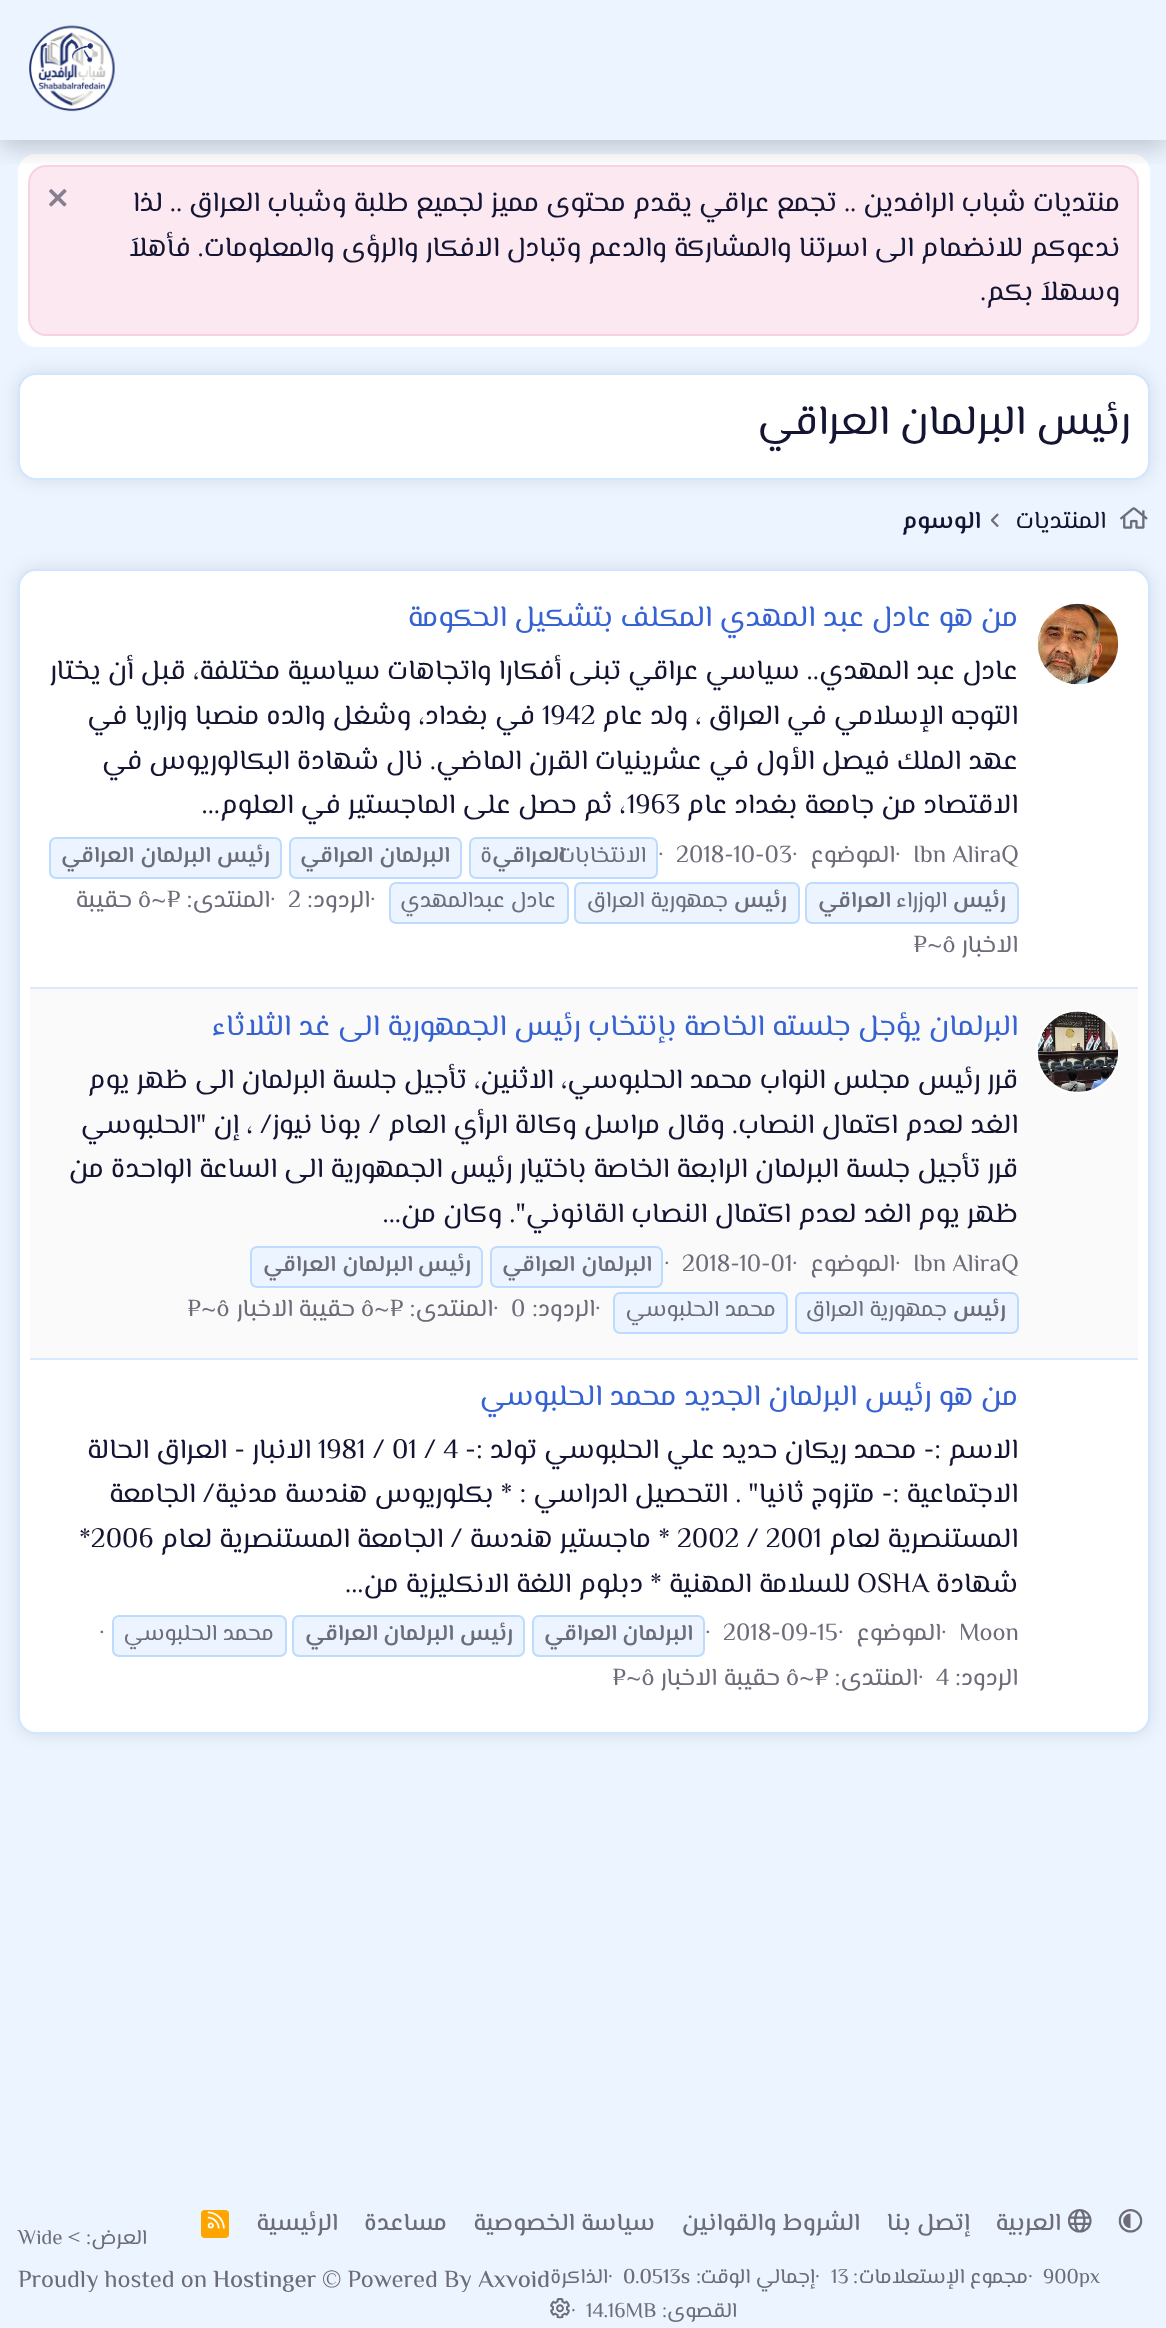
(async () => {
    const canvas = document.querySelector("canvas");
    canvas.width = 1166;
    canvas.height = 2328;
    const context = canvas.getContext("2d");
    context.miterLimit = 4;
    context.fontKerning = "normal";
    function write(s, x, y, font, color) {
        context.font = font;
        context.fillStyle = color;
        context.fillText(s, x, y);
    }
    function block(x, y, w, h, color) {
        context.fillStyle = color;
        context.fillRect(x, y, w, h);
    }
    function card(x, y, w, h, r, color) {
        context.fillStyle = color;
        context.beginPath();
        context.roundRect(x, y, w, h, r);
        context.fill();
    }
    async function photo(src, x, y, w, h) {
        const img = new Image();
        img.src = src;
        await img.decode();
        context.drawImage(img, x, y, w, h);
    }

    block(0, 0, 1166, 2328, "rgb(235, 244, 255)");
    card(18, 154, 1132, 193, 18, "rgb(255, 255, 255)");
    card(28, 165, 1111, 171, 18, "rgb(252, 232, 240)");
    context.beginPath();
    context.roundRect(29, 166, 1109, 169, 17);
    context.strokeStyle = "rgba(222, 18, 99, 0.1)";
    context.lineWidth = 2;
    context.stroke();
    context.save();
    context.beginPath();
    context.rect(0, 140, 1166, 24);
    context.clip();
    context.fillStyle = "rgba(0, 0, 0, 0.2)";
    context.filter = "blur(13px)";
    context.beginPath();
    context.rect(0, 7, 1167, 140);
    context.fill();
    context.filter = "none";
    context.restore();
    await photo("media/1.png", 29, 25, 86, 87);
    context.direction = "rtl";
    write("منتديات شباب الرافدين .. تجمع عراقي يقدم محتوى مميز لجميع طلبة وشباب العراق .. لذا", 1120, 211, "28px El Messiri", "rgb(20, 20, 51)");
    await photo("media/2.png", 49, 189, 18, 18);
    write("ندعوكم للانضمام الى اسرتنا والمشاركة والدعم وتبادل الافكار والرؤى والمعلومات. فأهلاَ", 1120, 256, "28px El Messiri", "rgb(20, 20, 51)");
    write("وسهلاَ بكم.", 1120, 300, "28px El Messiri", "rgb(20, 20, 51)");
    context.fillStyle = "rgba(0, 0, 0, 0.1)";
    context.filter = "blur(9px)";
    context.beginPath();
    context.roundRect(18, 373, 1132, 107, 18);
    context.fill();
    context.filter = "none";
    context.fillStyle = "rgb(255, 255, 255)";
    context.beginPath();
    context.roundRect(19, 374, 1130, 105, 17);
    context.fill();
    context.strokeStyle = "rgb(209, 230, 255)";
    context.stroke();
    write("رئيس البرلمان العراقي", 1130, 434, "42px El Messiri", "rgb(20, 20, 51)");
    await photo("media/3.png", 1120, 507, 28, 22);
    write("المنتديات", 1106, 528, "24.5px El Messiri", "rgb(20, 20, 51)");
    await photo("media/4.png", 991, 513, 8, 14);
    write("الوسوم", 981, 528, "600 24.5px El Messiri", "rgb(20, 20, 51)");
    context.fillStyle = "rgba(0, 0, 0, 0.1)";
    context.filter = "blur(9px)";
    context.beginPath();
    context.roundRect(18, 569, 1132, 1165, 18);
    context.fill();
    context.filter = "none";
    context.fillStyle = "rgb(255, 255, 255)";
    context.beginPath();
    context.roundRect(19, 570, 1130, 1163, 17);
    context.fill();
    context.stroke();
    await photo("media/5.png", 1037, 603, 82, 82);
    write("من هو عادل عبد المهدي المكلف بتشكيل الحكومة", 1018, 626, "29.75px El Messiri", "rgb(55, 99, 210)");
    write("عادل عبد المهدي.. سياسي عراقي تبنى أفكارا واتجاهات سياسية مختلفة، قبل أن يختار", 1018, 679, "28px El Messiri", "rgb(20, 20, 51)");
    write("التوجه الإسلامي في العراق ، ولد عام", 1018, 724, "28px El Messiri", "rgb(20, 20, 51)");
    context.direction = "ltr";
    write("1942", 542, 724, "28px El Messiri", "rgb(20, 20, 51)");
    context.direction = "rtl";
    write("في بغداد، وشغل والده منصبا وزاريا في", 535, 724, "28px El Messiri", "rgb(20, 20, 51)");
    write("عهد الملك فيصل الأول في عشرينيات القرن الماضي.", 1018, 769, "28px El Messiri", "rgb(20, 20, 51)");
    write("نال شهادة البكالوريوس في", 423, 769, "28px El Messiri", "rgb(20, 20, 51)");
    write("الاقتصاد من جامعة بغداد عام", 1018, 813, "28px El Messiri", "rgb(20, 20, 51)");
    context.direction = "ltr";
    write("1963", 627, 813, "28px El Messiri", "rgb(20, 20, 51)");
    context.direction = "rtl";
    write("، ثم حصل على الماجستير في العلوم...", 626, 813, "28px El Messiri", "rgb(20, 20, 51)");
    context.direction = "ltr";
    write("·", 658, 862, "24.5px El Messiri", "rgb(108, 108, 122)");
    context.fillStyle = "rgb(235, 244, 255)";
    context.beginPath();
    context.roundRect(470, 838, 187, 40, 6);
    context.fill();
    context.strokeStyle = "rgb(189, 219, 255)";
    context.stroke();
    context.direction = "rtl";
    write("الانتخابات", 646, 862, "22.75px El Messiri", "rgb(108, 108, 122)");
    write("العراقي", 565, 862, "600 22.75px El Messiri", "rgb(108, 108, 122)");
    write("ة", 492, 862, "22.75px El Messiri", "rgb(108, 108, 122)");
    context.fillStyle = "rgb(235, 244, 255)";
    context.beginPath();
    context.roundRect(290, 838, 171, 40, 6);
    context.fill();
    context.stroke();
    write("البرلمان", 450, 862, "600 22.75px El Messiri", "rgb(108, 108, 122)");
    write("العراقي", 373, 862, "600 22.75px El Messiri", "rgb(108, 108, 122)");
    context.fillStyle = "rgb(235, 244, 255)";
    context.beginPath();
    context.roundRect(50, 838, 231, 40, 6);
    context.fill();
    context.stroke();
    write("رئيس", 270, 862, "600 22.75px El Messiri", "rgb(108, 108, 122)");
    write("البرلمان", 211, 862, "600 22.75px El Messiri", "rgb(108, 108, 122)");
    write("العراقي", 134, 862, "600 22.75px El Messiri", "rgb(108, 108, 122)");
    context.fillStyle = "rgb(235, 244, 255)";
    context.beginPath();
    context.roundRect(806, 883, 212, 40, 6);
    context.fill();
    context.stroke();
    write("رئيس", 1006, 907, "600 22.75px El Messiri", "rgb(108, 108, 122)");
    write("الوزراء", 947, 907, "22.75px El Messiri", "rgb(108, 108, 122)");
    write("العراقي", 891, 907, "600 22.75px El Messiri", "rgb(108, 108, 122)");
    context.fillStyle = "rgb(235, 244, 255)";
    context.beginPath();
    context.roundRect(575, 883, 224, 40, 6);
    context.fill();
    context.stroke();
    write("رئيس", 787, 907, "600 22.75px El Messiri", "rgb(108, 108, 122)");
    write("جمهورية العراق", 728, 907, "22.75px El Messiri", "rgb(108, 108, 122)");
    context.fillStyle = "rgb(235, 244, 255)";
    context.beginPath();
    context.roundRect(390, 883, 178, 40, 6);
    context.fill();
    context.stroke();
    write("عادل عبدالمهدي", 556, 907, "22.75px El Messiri", "rgb(108, 108, 122)");
    context.direction = "ltr";
    write("Ibn AliraQ", 913, 862, "24.5px El Messiri", "rgb(108, 108, 122)");
    write("·", 895, 862, "24.5px El Messiri", "rgb(108, 108, 122)");
    context.direction = "rtl";
    write("الموضوع", 895, 862, "24.5px El Messiri", "rgb(108, 108, 122)");
    context.direction = "ltr";
    write("·", 792, 862, "24.5px El Messiri", "rgb(108, 108, 122)");
    write("2018-10-03", 676, 862, "24.5px El Messiri", "rgb(108, 108, 122)");
    write("·", 370, 907, "24.5px El Messiri", "rgb(108, 108, 122)");
    context.direction = "rtl";
    write("الردود:", 370, 907, "24.5px El Messiri", "rgb(108, 108, 122)");
    context.direction = "ltr";
    write("2", 288, 907, "24.5px El Messiri", "rgb(108, 108, 122)");
    write("·", 270, 907, "24.5px El Messiri", "rgb(108, 108, 122)");
    context.direction = "rtl";
    write("المنتدى:", 270, 907, "24.5px El Messiri", "rgb(108, 108, 122)");
    context.direction = "ltr";
    write("ô~¤", 138, 907, "24.5px El Messiri", "rgb(108, 108, 122)");
    context.direction = "rtl";
    write("حقيبة", 132, 907, "24.5px El Messiri", "rgb(108, 108, 122)");
    write("الاخبار", 1018, 952, "24.5px El Messiri", "rgb(108, 108, 122)");
    context.direction = "ltr";
    write("¤~ô", 913, 952, "24.5px El Messiri", "rgb(108, 108, 122)");
    block(30, 989, 1108, 369, "rgb(250, 250, 250)");
    block(30, 987, 1108, 2, "rgb(219, 235, 255)");
    context.fillStyle = "rgb(255, 255, 255)";
    context.beginPath();
    context.arc(1078, 1052, 42, 0, Math.PI * 2);
    context.fill();
    await photo("media/6.png", 1037, 1011, 82, 81);
    context.direction = "rtl";
    write("البرلمان يؤجل جلسته الخاصة بإنتخاب رئيس الجمهورية الى غد الثلاثاء", 1018, 1035, "29.75px El Messiri", "rgb(55, 99, 210)");
    write("قرر رئيس مجلس النواب محمد الحلبوسي، الاثنين، تأجيل جلسة البرلمان الى ظهر يوم", 1018, 1088, "28px El Messiri", "rgb(20, 20, 51)");
    write("الغد لعدم اكتمال النصاب. وقال مراسل وكالة الرأي العام / بونا نيوز/ ، إن \"الحلبوسي", 1018, 1133, "28px El Messiri", "rgb(20, 20, 51)");
    write("قرر تأجيل جلسة البرلمان الرابعة الخاصة باختيار رئيس الجمهورية الى الساعة الواحدة من", 1018, 1177, "28px El Messiri", "rgb(20, 20, 51)");
    write("ظهر يوم الغد لعدم اكتمال النصاب القانوني\". وكان من...", 1018, 1222, "28px El Messiri", "rgb(20, 20, 51)");
    context.direction = "ltr";
    write("·", 664, 1271, "24.5px El Messiri", "rgb(108, 108, 122)");
    context.fillStyle = "rgb(235, 244, 255)";
    context.beginPath();
    context.roundRect(491, 1247, 171, 40, 6);
    context.fill();
    context.stroke();
    context.direction = "rtl";
    write("البرلمان", 652, 1271, "600 22.75px El Messiri", "rgb(108, 108, 122)");
    write("العراقي", 575, 1271, "600 22.75px El Messiri", "rgb(108, 108, 122)");
    context.fillStyle = "rgb(235, 244, 255)";
    context.beginPath();
    context.roundRect(251, 1247, 231, 40, 6);
    context.fill();
    context.stroke();
    write("رئيس", 471, 1271, "600 22.75px El Messiri", "rgb(108, 108, 122)");
    write("البرلمان", 413, 1271, "600 22.75px El Messiri", "rgb(108, 108, 122)");
    write("العراقي", 336, 1271, "600 22.75px El Messiri", "rgb(108, 108, 122)");
    context.fillStyle = "rgb(235, 244, 255)";
    context.beginPath();
    context.roundRect(796, 1293, 222, 40, 6);
    context.fill();
    context.stroke();
    write("رئيس", 1006, 1316, "600 22.75px El Messiri", "rgb(108, 108, 122)");
    write("جمهورية العراق", 947, 1316, "22.75px El Messiri", "rgb(108, 108, 122)");
    context.fillStyle = "rgb(235, 244, 255)";
    context.beginPath();
    context.roundRect(614, 1293, 173, 40, 6);
    context.fill();
    context.stroke();
    write("محمد الحلبوسي", 776, 1316, "22.75px El Messiri", "rgb(108, 108, 122)");
    context.direction = "ltr";
    write("Ibn AliraQ", 913, 1271, "24.5px El Messiri", "rgb(108, 108, 122)");
    write("·", 895, 1271, "24.5px El Messiri", "rgb(108, 108, 122)");
    context.direction = "rtl";
    write("الموضوع", 895, 1271, "24.5px El Messiri", "rgb(108, 108, 122)");
    context.direction = "ltr";
    write("·", 792, 1271, "24.5px El Messiri", "rgb(108, 108, 122)");
    write("2018-10-01", 682, 1271, "24.5px El Messiri", "rgb(108, 108, 122)");
    write("·", 595, 1316, "24.5px El Messiri", "rgb(108, 108, 122)");
    context.direction = "rtl";
    write("الردود:", 595, 1316, "24.5px El Messiri", "rgb(108, 108, 122)");
    context.direction = "ltr";
    write("0", 511, 1316, "24.5px El Messiri", "rgb(108, 108, 122)");
    write("·", 493, 1316, "24.5px El Messiri", "rgb(108, 108, 122)");
    context.direction = "rtl";
    write("المنتدى:", 493, 1316, "24.5px El Messiri", "rgb(108, 108, 122)");
    context.direction = "ltr";
    write("ô~¤", 361, 1316, "24.5px El Messiri", "rgb(108, 108, 122)");
    context.direction = "rtl";
    write("حقيبة", 355, 1316, "24.5px El Messiri", "rgb(108, 108, 122)");
    write("الاخبار", 293, 1316, "24.5px El Messiri", "rgb(108, 108, 122)");
    context.direction = "ltr";
    write("¤~ô", 187, 1316, "24.5px El Messiri", "rgb(108, 108, 122)");
    block(30, 1358, 1108, 2, "rgb(219, 235, 255)");
    context.direction = "rtl";
    write("من هو رئيس البرلمان الجديد محمد الحلبوسي", 1018, 1405, "29.75px El Messiri", "rgb(55, 99, 210)");
    write("الاسم :- محمد ريكان حديد علي الحلبوسي تولد :-", 1018, 1458, "28px El Messiri", "rgb(20, 20, 51)");
    context.direction = "ltr";
    write("1981 / 01 / 4", 318, 1458, "28px El Messiri", "rgb(20, 20, 51)");
    context.direction = "rtl";
    write("الانبار - العراق الحالة", 311, 1458, "28px El Messiri", "rgb(20, 20, 51)");
    write("الاجتماعية :- متزوج", 1018, 1502, "28px El Messiri", "rgb(20, 20, 51)");
    write("ثانيا\" . التحصيل الدراسي : * بكلوريوس هندسة مدنية/ الجامعة", 804, 1502, "28px El Messiri", "rgb(20, 20, 51)");
    write("المستنصرية لعام", 1018, 1547, "28px El Messiri", "rgb(20, 20, 51)");
    context.direction = "ltr";
    write("2002 / 2001", 677, 1547, "28px El Messiri", "rgb(20, 20, 51)");
    context.direction = "rtl";
    write("* ماجستير هندسة / الجامعة المستنصرية لعام", 670, 1547, "28px El Messiri", "rgb(20, 20, 51)");
    context.direction = "ltr";
    write("*2006", 79, 1547, "28px El Messiri", "rgb(20, 20, 51)");
    context.direction = "rtl";
    write("شهادة", 1018, 1592, "28px El Messiri", "rgb(20, 20, 51)");
    context.direction = "ltr";
    write("OSHA", 857, 1592, "28px El Messiri", "rgb(20, 20, 51)");
    context.direction = "rtl";
    write("للسلامة المهنية * دبلوم اللغة الانكليزية من...", 850, 1592, "28px El Messiri", "rgb(20, 20, 51)");
    context.direction = "ltr";
    write("Moon", 959, 1640, "24.5px El Messiri", "rgb(108, 108, 122)");
    write("·", 941, 1640, "24.5px El Messiri", "rgb(108, 108, 122)");
    context.direction = "rtl";
    write("الموضوع", 941, 1640, "24.5px El Messiri", "rgb(108, 108, 122)");
    context.direction = "ltr";
    write("·", 838, 1640, "24.5px El Messiri", "rgb(108, 108, 122)");
    write("2018-09-15", 723, 1640, "24.5px El Messiri", "rgb(108, 108, 122)");
    write("·", 705, 1640, "24.5px El Messiri", "rgb(108, 108, 122)");
    context.fillStyle = "rgb(235, 244, 255)";
    context.beginPath();
    context.roundRect(533, 1616, 171, 40, 6);
    context.fill();
    context.stroke();
    context.direction = "rtl";
    write("البرلمان", 693, 1640, "600 22.75px El Messiri", "rgb(108, 108, 122)");
    write("العراقي", 617, 1640, "600 22.75px El Messiri", "rgb(108, 108, 122)");
    context.fillStyle = "rgb(235, 244, 255)";
    context.beginPath();
    context.roundRect(293, 1616, 231, 40, 6);
    context.fill();
    context.stroke();
    write("رئيس", 513, 1640, "600 22.75px El Messiri", "rgb(108, 108, 122)");
    write("البرلمان", 454, 1640, "600 22.75px El Messiri", "rgb(108, 108, 122)");
    write("العراقي", 378, 1640, "600 22.75px El Messiri", "rgb(108, 108, 122)");
    context.fillStyle = "rgb(235, 244, 255)";
    context.beginPath();
    context.roundRect(113, 1616, 173, 40, 6);
    context.fill();
    context.stroke();
    write("محمد الحلبوسي", 274, 1640, "22.75px El Messiri", "rgb(108, 108, 122)");
    context.direction = "ltr";
    write("·", 99, 1640, "24.5px El Messiri", "rgb(108, 108, 122)");
    context.direction = "rtl";
    write("الردود:", 1018, 1685, "24.5px El Messiri", "rgb(108, 108, 122)");
    context.direction = "ltr";
    write("4", 936, 1685, "24.5px El Messiri", "rgb(108, 108, 122)");
    write("·", 918, 1685, "24.5px El Messiri", "rgb(108, 108, 122)");
    context.direction = "rtl";
    write("المنتدى:", 918, 1685, "24.5px El Messiri", "rgb(108, 108, 122)");
    context.direction = "ltr";
    write("ô~¤", 786, 1685, "24.5px El Messiri", "rgb(108, 108, 122)");
    context.direction = "rtl";
    write("حقيبة", 780, 1685, "24.5px El Messiri", "rgb(108, 108, 122)");
    write("الاخبار", 717, 1685, "24.5px El Messiri", "rgb(108, 108, 122)");
    context.direction = "ltr";
    write("¤~ô", 612, 1685, "24.5px El Messiri", "rgb(108, 108, 122)");
    await photo("media/7.png", 1118, 2209, 25, 24);
    await photo("media/8.png", 1068, 2209, 24, 24);
    context.direction = "rtl";
    write("العربية", 1061, 2230, "500 24.5px El Messiri", "rgb(108, 108, 122)");
    write("إتصل بنا", 970, 2230, "500 24.5px El Messiri", "rgb(108, 108, 122)");
    write("الشروط والقوانين", 860, 2230, "500 24.5px El Messiri", "rgb(108, 108, 122)");
    write("سياسة الخصوصية", 655, 2230, "500 24.5px El Messiri", "rgb(108, 108, 122)");
    write("مساعدة", 447, 2230, "500 24.5px El Messiri", "rgb(108, 108, 122)");
    write("الرئيسية", 338, 2230, "500 24.5px El Messiri", "rgb(108, 108, 122)");
    card(201, 2210, 28, 28, 4, "rgb(255, 165, 0)");
    await photo("media/9.png", 207, 2211, 18, 18);
    write("العرض", 147, 2244, "21px El Messiri", "rgb(108, 108, 122)");
    context.direction = "ltr";
    write(":", 86, 2244, "21px El Messiri", "rgb(108, 108, 122)");
    write("Wide <", 18, 2244, "21px El Messiri", "rgb(108, 108, 122)");
    write("900px", 1043, 2283, "21px El Messiri", "rgb(108, 108, 122)");
    write("·", 1028, 2283, "21px El Messiri", "rgb(108, 108, 122)");
    context.direction = "rtl";
    write("مجموع الإستعلامات", 1028, 2283, "21px El Messiri", "rgb(108, 108, 122)");
    context.direction = "ltr";
    write(":", 853, 2283, "21px El Messiri", "rgb(108, 108, 122)");
    write("13", 831, 2283, "21px El Messiri", "rgb(108, 108, 122)");
    write("·", 815, 2283, "21px El Messiri", "rgb(108, 108, 122)");
    context.direction = "rtl";
    write("إجمالي الوقت", 815, 2283, "21px El Messiri", "rgb(108, 108, 122)");
    context.direction = "ltr";
    write(":", 696, 2283, "21px El Messiri", "rgb(108, 108, 122)");
    write("0.0513s", 623, 2283, "500 21px El Messiri", "rgb(108, 108, 122)");
    write("·", 608, 2283, "21px El Messiri", "rgb(108, 108, 122)");
    context.direction = "rtl";
    write("الذاكرة", 608, 2283, "21px El Messiri", "rgb(108, 108, 122)");
    write("القصوى", 737, 2317, "21px El Messiri", "rgb(108, 108, 122)");
    context.direction = "ltr";
    write(":", 662, 2317, "21px El Messiri", "rgb(108, 108, 122)");
    write("14.16MB", 586, 2317, "21px El Messiri", "rgb(108, 108, 122)");
    write("·", 571, 2317, "21px El Messiri", "rgb(108, 108, 122)");
    await photo("media/10.png", 550, 2298, 20, 21);
    write("Axvoid", 478, 2287, "500 24.5px El Messiri", "rgb(108, 108, 122)");
    write("© Powered By", 322, 2287, "24.5px El Messiri", "rgb(108, 108, 122)");
    write("Hostinger", 213, 2287, "500 24.5px El Messiri", "rgb(108, 108, 122)");
    write("Proudly hosted on", 18, 2287, "24.5px El Messiri", "rgb(108, 108, 122)");
})();
